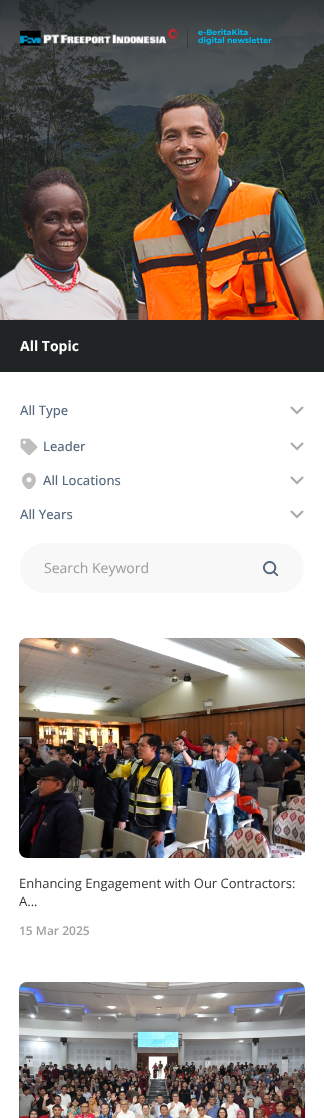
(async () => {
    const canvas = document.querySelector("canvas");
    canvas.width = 324;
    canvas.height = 1118;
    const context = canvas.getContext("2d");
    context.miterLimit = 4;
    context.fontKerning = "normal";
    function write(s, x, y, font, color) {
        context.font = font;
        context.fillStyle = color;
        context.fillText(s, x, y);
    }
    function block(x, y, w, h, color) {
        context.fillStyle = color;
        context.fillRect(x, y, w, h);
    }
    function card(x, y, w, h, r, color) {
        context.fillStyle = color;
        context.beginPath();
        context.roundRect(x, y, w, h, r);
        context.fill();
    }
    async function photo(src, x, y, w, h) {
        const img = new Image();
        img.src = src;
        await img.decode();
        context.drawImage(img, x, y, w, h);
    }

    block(0, 0, 324, 1118, "rgb(255, 255, 255)");
    await photo("media/2.png", 0, 0, 324, 320);
    await photo("media/1.png", 20, 29, 158, 17);
    block(187, 28, 1, 20, "rgb(55, 58, 59)");
    write("e-BeritaKita", 198, 35, "bold 8px Montserrat", "rgb(0, 185, 241)");
    write("digital newsletter", 198, 43, "bold 8px Montserrat", "rgb(0, 185, 241)");
    block(0, 320, 324, 52, "rgb(32, 36, 37)");
    write("All Topic", 20, 351, "bold 14px Open Sans", "rgb(255, 255, 255)");
    await photo("media/3.png", 290, 406, 14, 9);
    write("All Type", 20, 415, "500 13px Open Sans", "rgb(84, 103, 123)");
    await photo("media/3.png", 290, 442, 14, 9);
    await photo("media/4.png", 20, 438, 18, 17);
    write("Leader", 43, 451, "500 13px Open Sans", "rgb(84, 103, 123)");
    await photo("media/3.png", 290, 476, 14, 9);
    await photo("media/5.png", 22, 472, 14, 17);
    write("All Locations", 43, 485, "500 13px Open Sans", "rgb(84, 103, 123)");
    await photo("media/3.png", 290, 510, 14, 9);
    write("All Years", 20, 519, "500 13px Open Sans", "rgb(84, 103, 123)");
    card(20, 543, 284, 50, 25, "rgb(248, 248, 248)");
    write("Search Keyword", 44, 573, "14px Open Sans", "rgb(153, 153, 153)");
    await photo("media/6.png", 263, 561, 15, 15);
    await photo("media/7.png", 19, 638, 286, 220);
    write("Enhancing Engagement with Our Contractors:", 19, 888, "13px Open Sans", "rgb(51, 51, 51)");
    write("A...", 19, 906, "13px Open Sans", "rgb(51, 51, 51)");
    write("15 Mar 2025", 19, 935, "600 12px Open Sans", "rgb(160, 160, 160)");
    await photo("media/8.png", 19, 982, 286, 136);
})();
